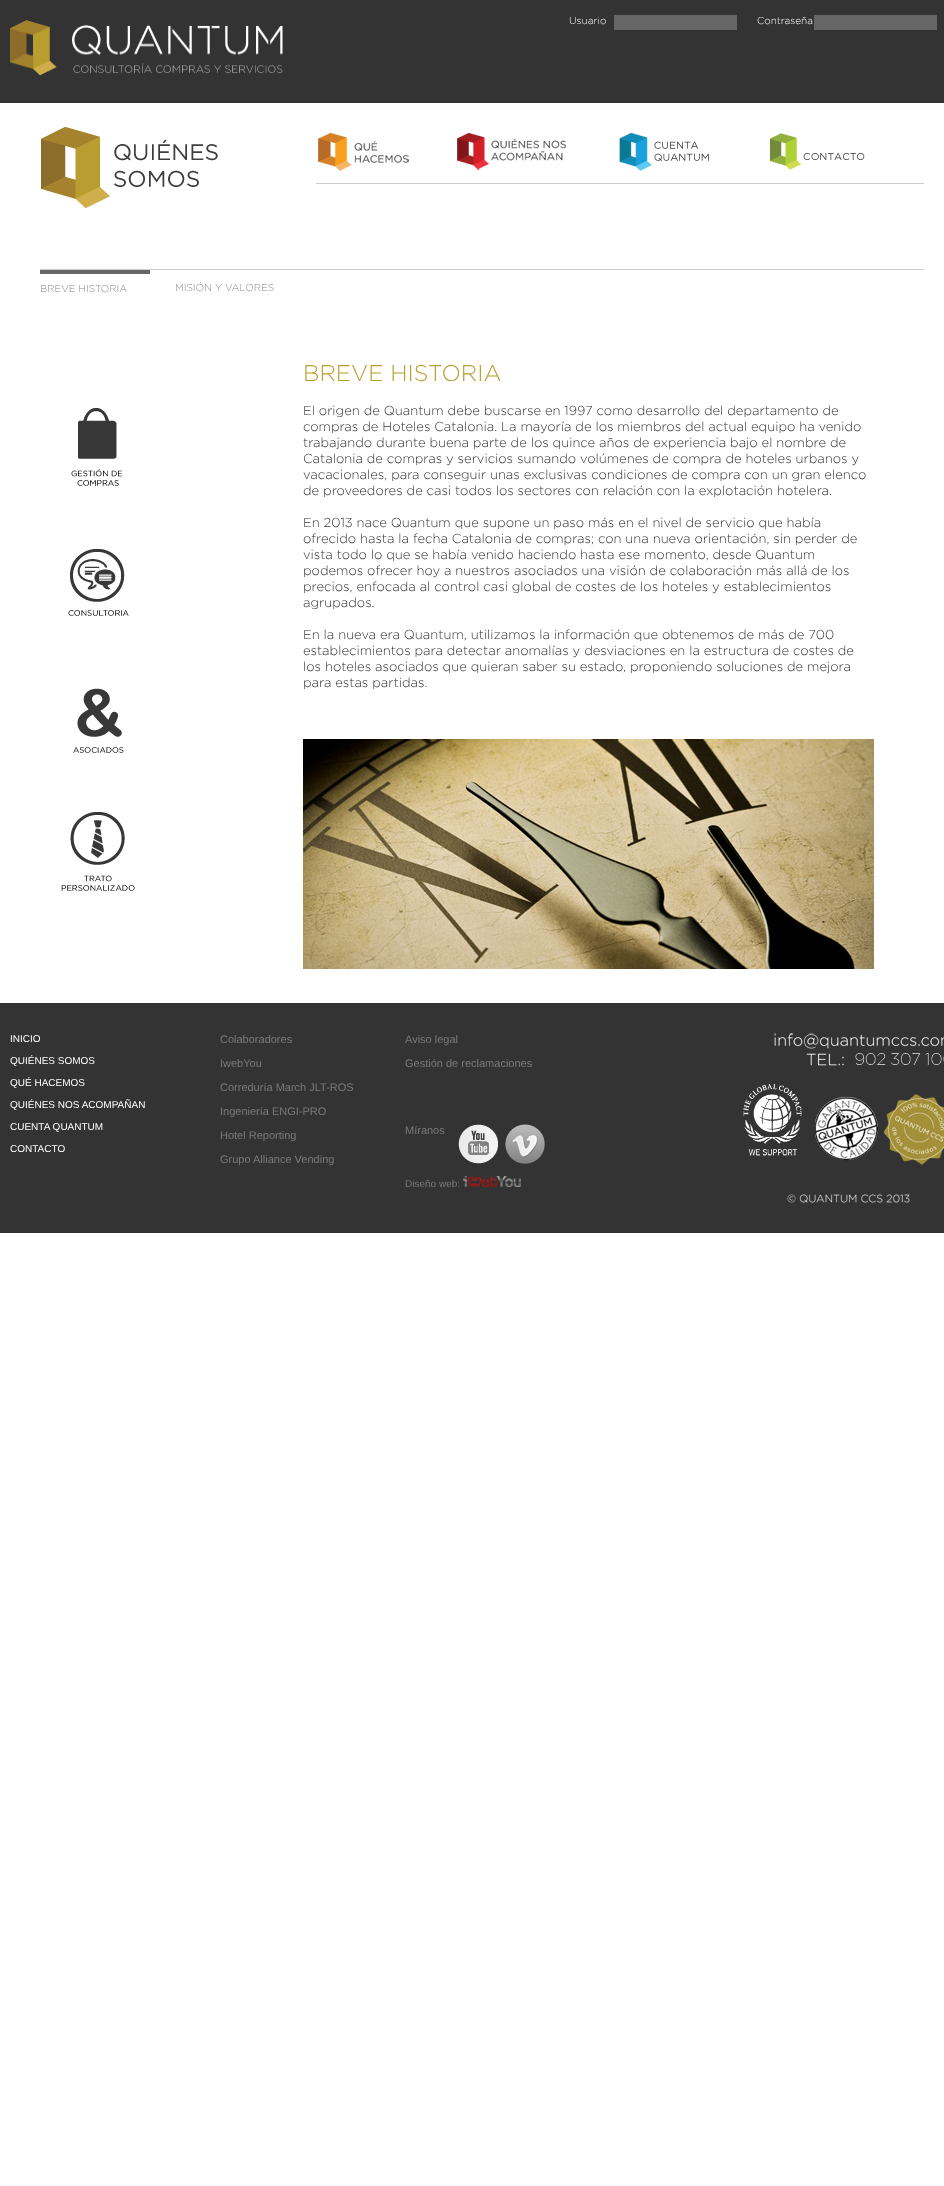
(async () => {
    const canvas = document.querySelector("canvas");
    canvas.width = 944;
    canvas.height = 2186;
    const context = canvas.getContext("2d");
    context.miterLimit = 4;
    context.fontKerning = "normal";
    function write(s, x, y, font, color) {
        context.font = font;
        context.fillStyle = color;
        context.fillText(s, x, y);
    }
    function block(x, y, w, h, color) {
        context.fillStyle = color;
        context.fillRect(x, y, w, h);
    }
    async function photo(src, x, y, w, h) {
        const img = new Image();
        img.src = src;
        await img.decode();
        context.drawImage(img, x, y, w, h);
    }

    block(0, 0, 944, 2186, "rgb(255, 255, 255)");
    block(0, 0, 944, 103, "rgb(51, 51, 51)");
    await photo("media/1.png", 10, 20, 273, 55);
    write("Usuario", 569, 24, "300 10px Gotham", "rgb(255, 255, 255)");
    block(614, 15, 123, 15, "rgb(102, 102, 102)");
    write("Contraseña", 757, 24, "300 10px Gotham", "rgb(255, 255, 255)");
    block(814, 15, 123, 15, "rgb(102, 102, 102)");
    await photo("media/2.png", 41, 127, 177, 81);
    block(316, 183, 608, 1, "rgb(204, 204, 204)");
    await photo("media/3.png", 318, 133, 91, 38);
    await photo("media/4.png", 457, 133, 109, 37);
    await photo("media/5.png", 619, 133, 90, 38);
    await photo("media/6.png", 770, 133, 95, 37);
    block(40, 269, 884, 1, "rgb(204, 204, 204)");
    block(40, 270, 110, 4, "rgb(102, 102, 102)");
    write("BREVE HISTORIA", 40, 292, "300 10px Gotham", "rgb(136, 136, 136)");
    write("MISIÓN Y VALORES", 175, 291, "300 10px Gotham", "rgb(136, 136, 136)");
    await photo("media/7.png", 71, 408, 52, 78);
    await photo("media/8.png", 68, 549, 61, 67);
    await photo("media/9.png", 73, 688, 51, 65);
    await photo("media/10.png", 61, 812, 74, 79);
    write("BREVE HISTORIA", 303, 381, "300 22.75px Gotham", "rgb(186, 157, 48)");
    write("El origen de Quantum debe buscarse en 1997 como desarrollo del departamento de", 303, 415, "300 13px Gotham", "rgb(51, 51, 51)");
    write("compras de Hoteles Catalonia. La mayoría de los miembros del actual equipo ha venido", 303, 431, "300 13px Gotham", "rgb(51, 51, 51)");
    write("trabajando durante buena parte de los quince años de experiencia bajo el nombre de", 303, 447, "300 13px Gotham", "rgb(51, 51, 51)");
    write("Catalonia de compras y servicios sumando volúmenes de compra de hoteles urbanos y", 303, 463, "300 13px Gotham", "rgb(51, 51, 51)");
    write("vacacionales, para conseguir unas exclusivas condiciones de compra con un gran elenco", 303, 479, "300 13px Gotham", "rgb(51, 51, 51)");
    write("de proveedores de casi todos los sectores con relación con la explotación hotelera.", 303, 495, "300 13px Gotham", "rgb(51, 51, 51)");
    write("En 2013 nace Quantum que supone un paso más en el nivel de servicio que había", 303, 527, "300 13px Gotham", "rgb(51, 51, 51)");
    write("ofrecido hasta la fecha Catalonia de compras; con una nueva orientación, sin perder de", 303, 543, "300 13px Gotham", "rgb(51, 51, 51)");
    write("vista todo lo que se había venido haciendo hasta ese momento, desde Quantum", 303, 559, "300 13px Gotham", "rgb(51, 51, 51)");
    write("podemos ofrecer hoy a nuestros asociados una visión de colaboración más allá de los", 303, 575, "300 13px Gotham", "rgb(51, 51, 51)");
    write("precios, enfocada al control casi global de costes de los hoteles y establecimientos", 303, 591, "300 13px Gotham", "rgb(51, 51, 51)");
    write("agrupados.", 303, 607, "300 13px Gotham", "rgb(51, 51, 51)");
    write("En la nueva era Quantum, utilizamos la información que obtenemos de más de 700", 303, 639, "300 13px Gotham", "rgb(51, 51, 51)");
    write("establecimientos para detectar anomalías y desviaciones en la estructura de costes de", 303, 655, "300 13px Gotham", "rgb(51, 51, 51)");
    write("los hoteles asociados que quieran saber su estado, proponiendo soluciones de mejora", 303, 671, "300 13px Gotham", "rgb(51, 51, 51)");
    write("para estas partidas.", 303, 687, "300 13px Gotham", "rgb(51, 51, 51)");
    await photo("media/11.png", 303, 739, 571, 230);
    block(0, 1003, 944, 230, "rgb(51, 51, 51)");
    write("INICIO", 10, 1042, "10px Liberation Sans", "rgb(255, 255, 255)");
    write("QUIÉNES SOMOS", 10, 1064, "10px Liberation Sans", "rgb(255, 255, 255)");
    write("QUÉ HACEMOS", 10, 1086, "10px Liberation Sans", "rgb(255, 255, 255)");
    write("QUIÉNES NOS ACOMPAÑAN", 10, 1108, "10px Liberation Sans", "rgb(255, 255, 255)");
    write("CUENTA QUANTUM", 10, 1130, "10px Liberation Sans", "rgb(255, 255, 255)");
    write("CONTACTO", 10, 1152, "10px Liberation Sans", "rgb(255, 255, 255)");
    write("Colaboradores", 220, 1043, "11px Liberation Sans", "rgb(122, 122, 122)");
    write("IwebYou", 220, 1067, "11px Liberation Sans", "rgb(122, 122, 122)");
    write("Correduría March JLT-ROS", 220, 1091, "11px Liberation Sans", "rgb(122, 122, 122)");
    write("Ingeniería ENGI-PRO", 220, 1115, "11px Liberation Sans", "rgb(122, 122, 122)");
    write("Hotel Reporting", 220, 1139, "11px Liberation Sans", "rgb(122, 122, 122)");
    write("Grupo Alliance Vending", 220, 1163, "11px Liberation Sans", "rgb(122, 122, 122)");
    write("Aviso legal", 405, 1043, "11px Liberation Sans", "rgb(122, 122, 122)");
    write("Gestión de reclamaciones", 405, 1067, "11px Liberation Sans", "rgb(122, 122, 122)");
    write("Míranos", 405, 1134, "11px Liberation Sans", "rgb(122, 122, 122)");
    await photo("media/12.png", 458, 1124, 40, 40);
    await photo("media/13.png", 505, 1124, 40, 40);
    await photo("media/14.png", 743, 1084, 59, 72);
    write("Diseño web:", 405, 1187, "10px Liberation Sans", "rgb(122, 122, 122)");
    await photo("media/15.png", 463, 1176, 58, 11);
    await photo("media/16.png", 774, 1033, 170, 170);
})();
